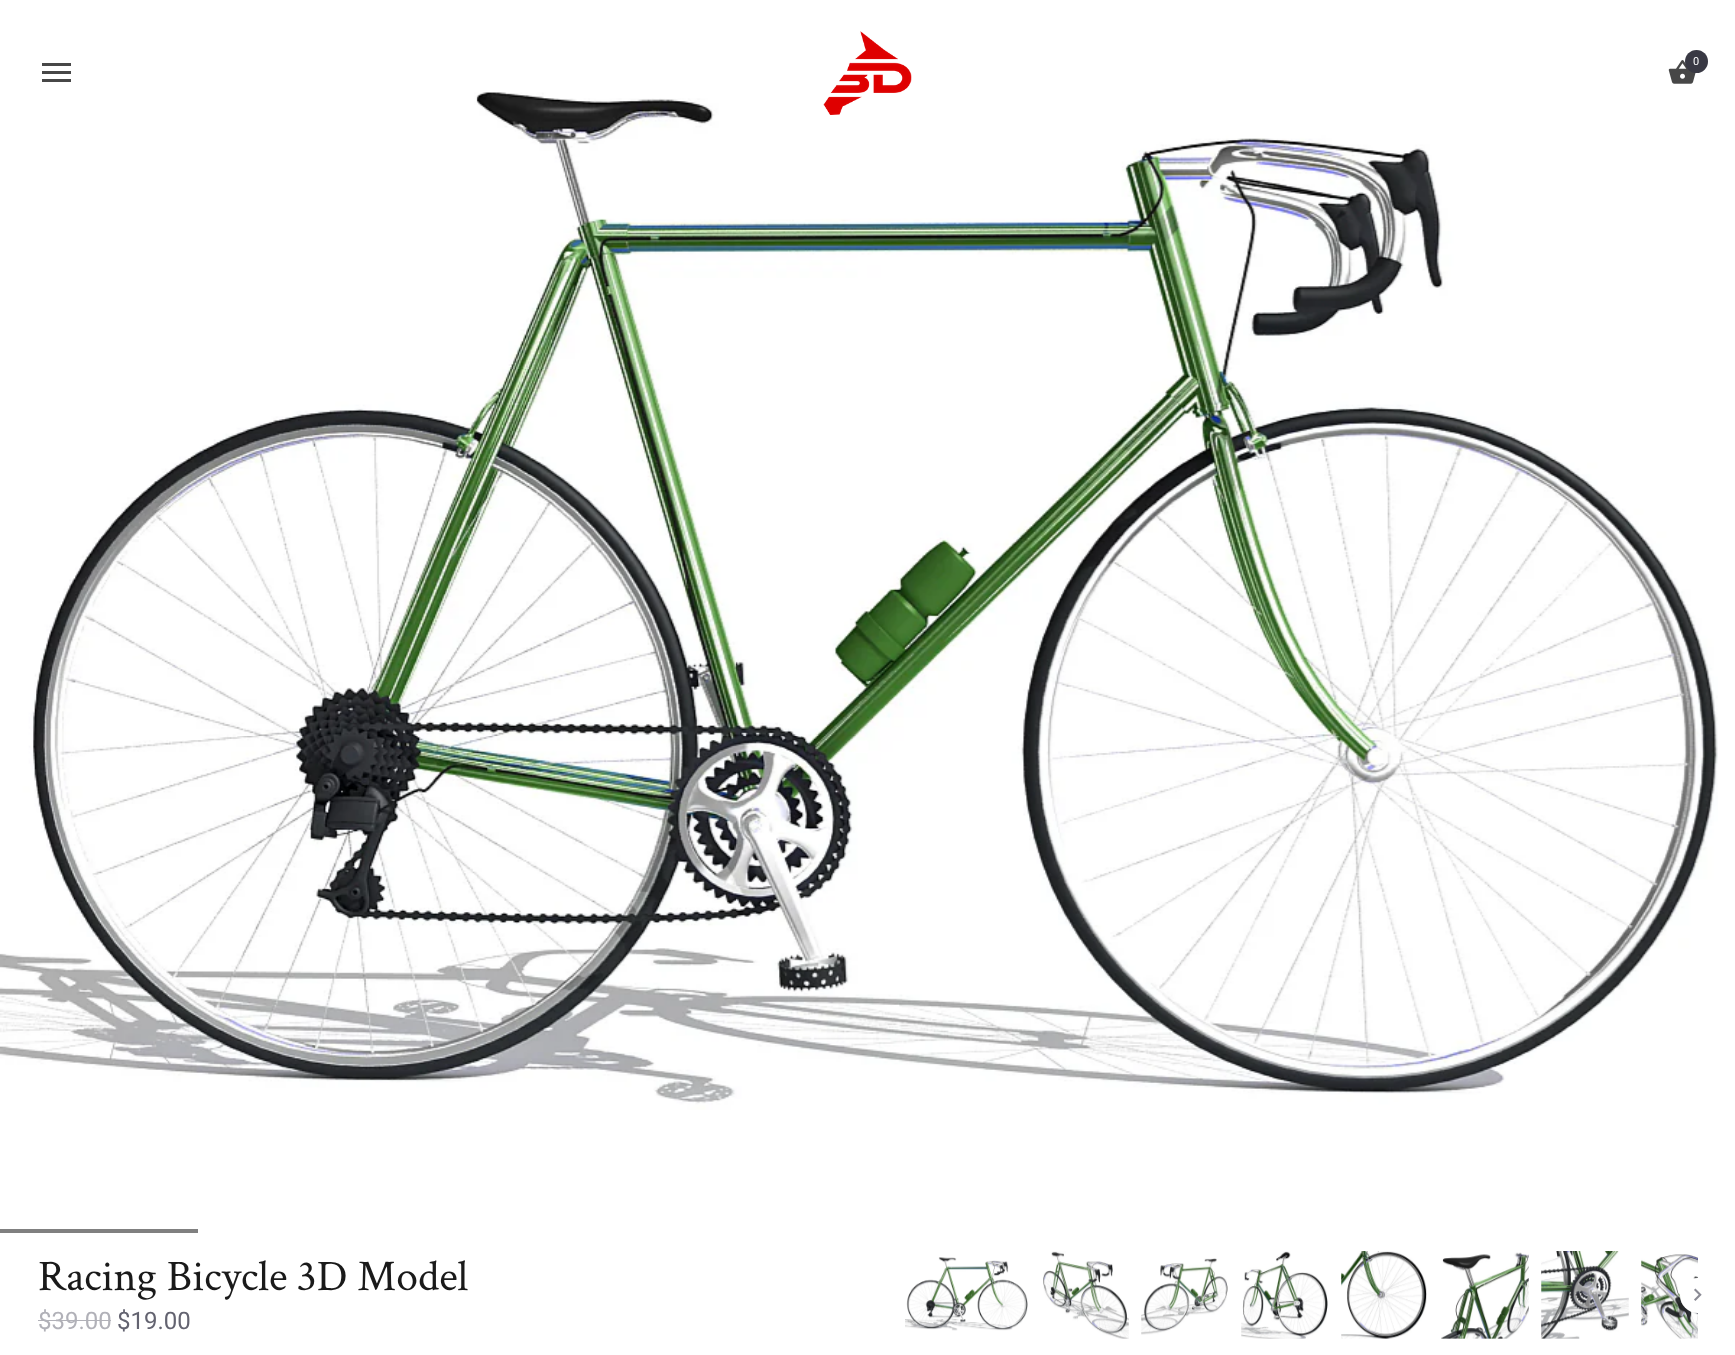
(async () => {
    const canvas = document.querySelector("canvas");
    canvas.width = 1735;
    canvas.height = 1355;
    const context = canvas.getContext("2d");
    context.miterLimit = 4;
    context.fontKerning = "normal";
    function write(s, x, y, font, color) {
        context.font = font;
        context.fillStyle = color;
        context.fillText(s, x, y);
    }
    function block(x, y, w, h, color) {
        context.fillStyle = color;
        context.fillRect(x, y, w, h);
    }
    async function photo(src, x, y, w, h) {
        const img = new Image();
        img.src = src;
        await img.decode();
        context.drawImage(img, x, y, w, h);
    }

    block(0, 0, 1735, 1355, "rgb(255, 255, 255)");
    await photo("media/3.png", 0, 92, 1718, 1018);
    await photo("media/1.png", 823, 31, 89, 84);
    await photo("media/2.png", 1668, 60, 28, 24);
    context.fillStyle = "rgb(57, 57, 68)";
    context.beginPath();
    context.arc(1696.5, 61.5, 11.5, 0, Math.PI * 2);
    context.fill();
    write("0", 1693, 65, "11px Roboto", "rgb(255, 255, 255)");
    block(42, 63, 29, 3, "rgb(71, 71, 71)");
    block(42, 71, 29, 3, "rgb(71, 71, 71)");
    block(42, 79, 29, 3, "rgb(71, 71, 71)");
    block(0, 1229, 198, 4, "rgb(128, 128, 128)");
    write("Racing Bicycle 3D Model", 38, 1290, "43.75px Crimson Text", "rgb(26, 26, 26)");
    write("$39.00", 38, 1329, "24px Roboto", "rgb(177, 177, 184)");
    block(38, 1320, 73, 1, "rgb(177, 177, 184)");
    write("$19.00", 117, 1329, "24px Roboto", "rgb(99, 99, 112)");
    await photo("media/4.png", 905, 1257, 123, 74);
    await photo("media/5.png", 1043, 1251, 86, 88);
    await photo("media/6.png", 1141, 1258, 87, 77);
    await photo("media/7.png", 1241, 1251, 87, 88);
    await photo("media/8.png", 1341, 1251, 86, 88);
    await photo("media/9.png", 1441, 1252, 88, 87);
    await photo("media/10.png", 1541, 1251, 88, 88);
    await photo("media/11.png", 1641, 1254, 57, 85);
    context.fillStyle = "rgb(255, 255, 255)";
    context.beginPath();
    context.arc(1697.5, 1295.5, 17.5, 0, Math.PI * 2);
    context.fill();
    await photo("media/12.png", 1694, 1288, 8, 13);
})();
